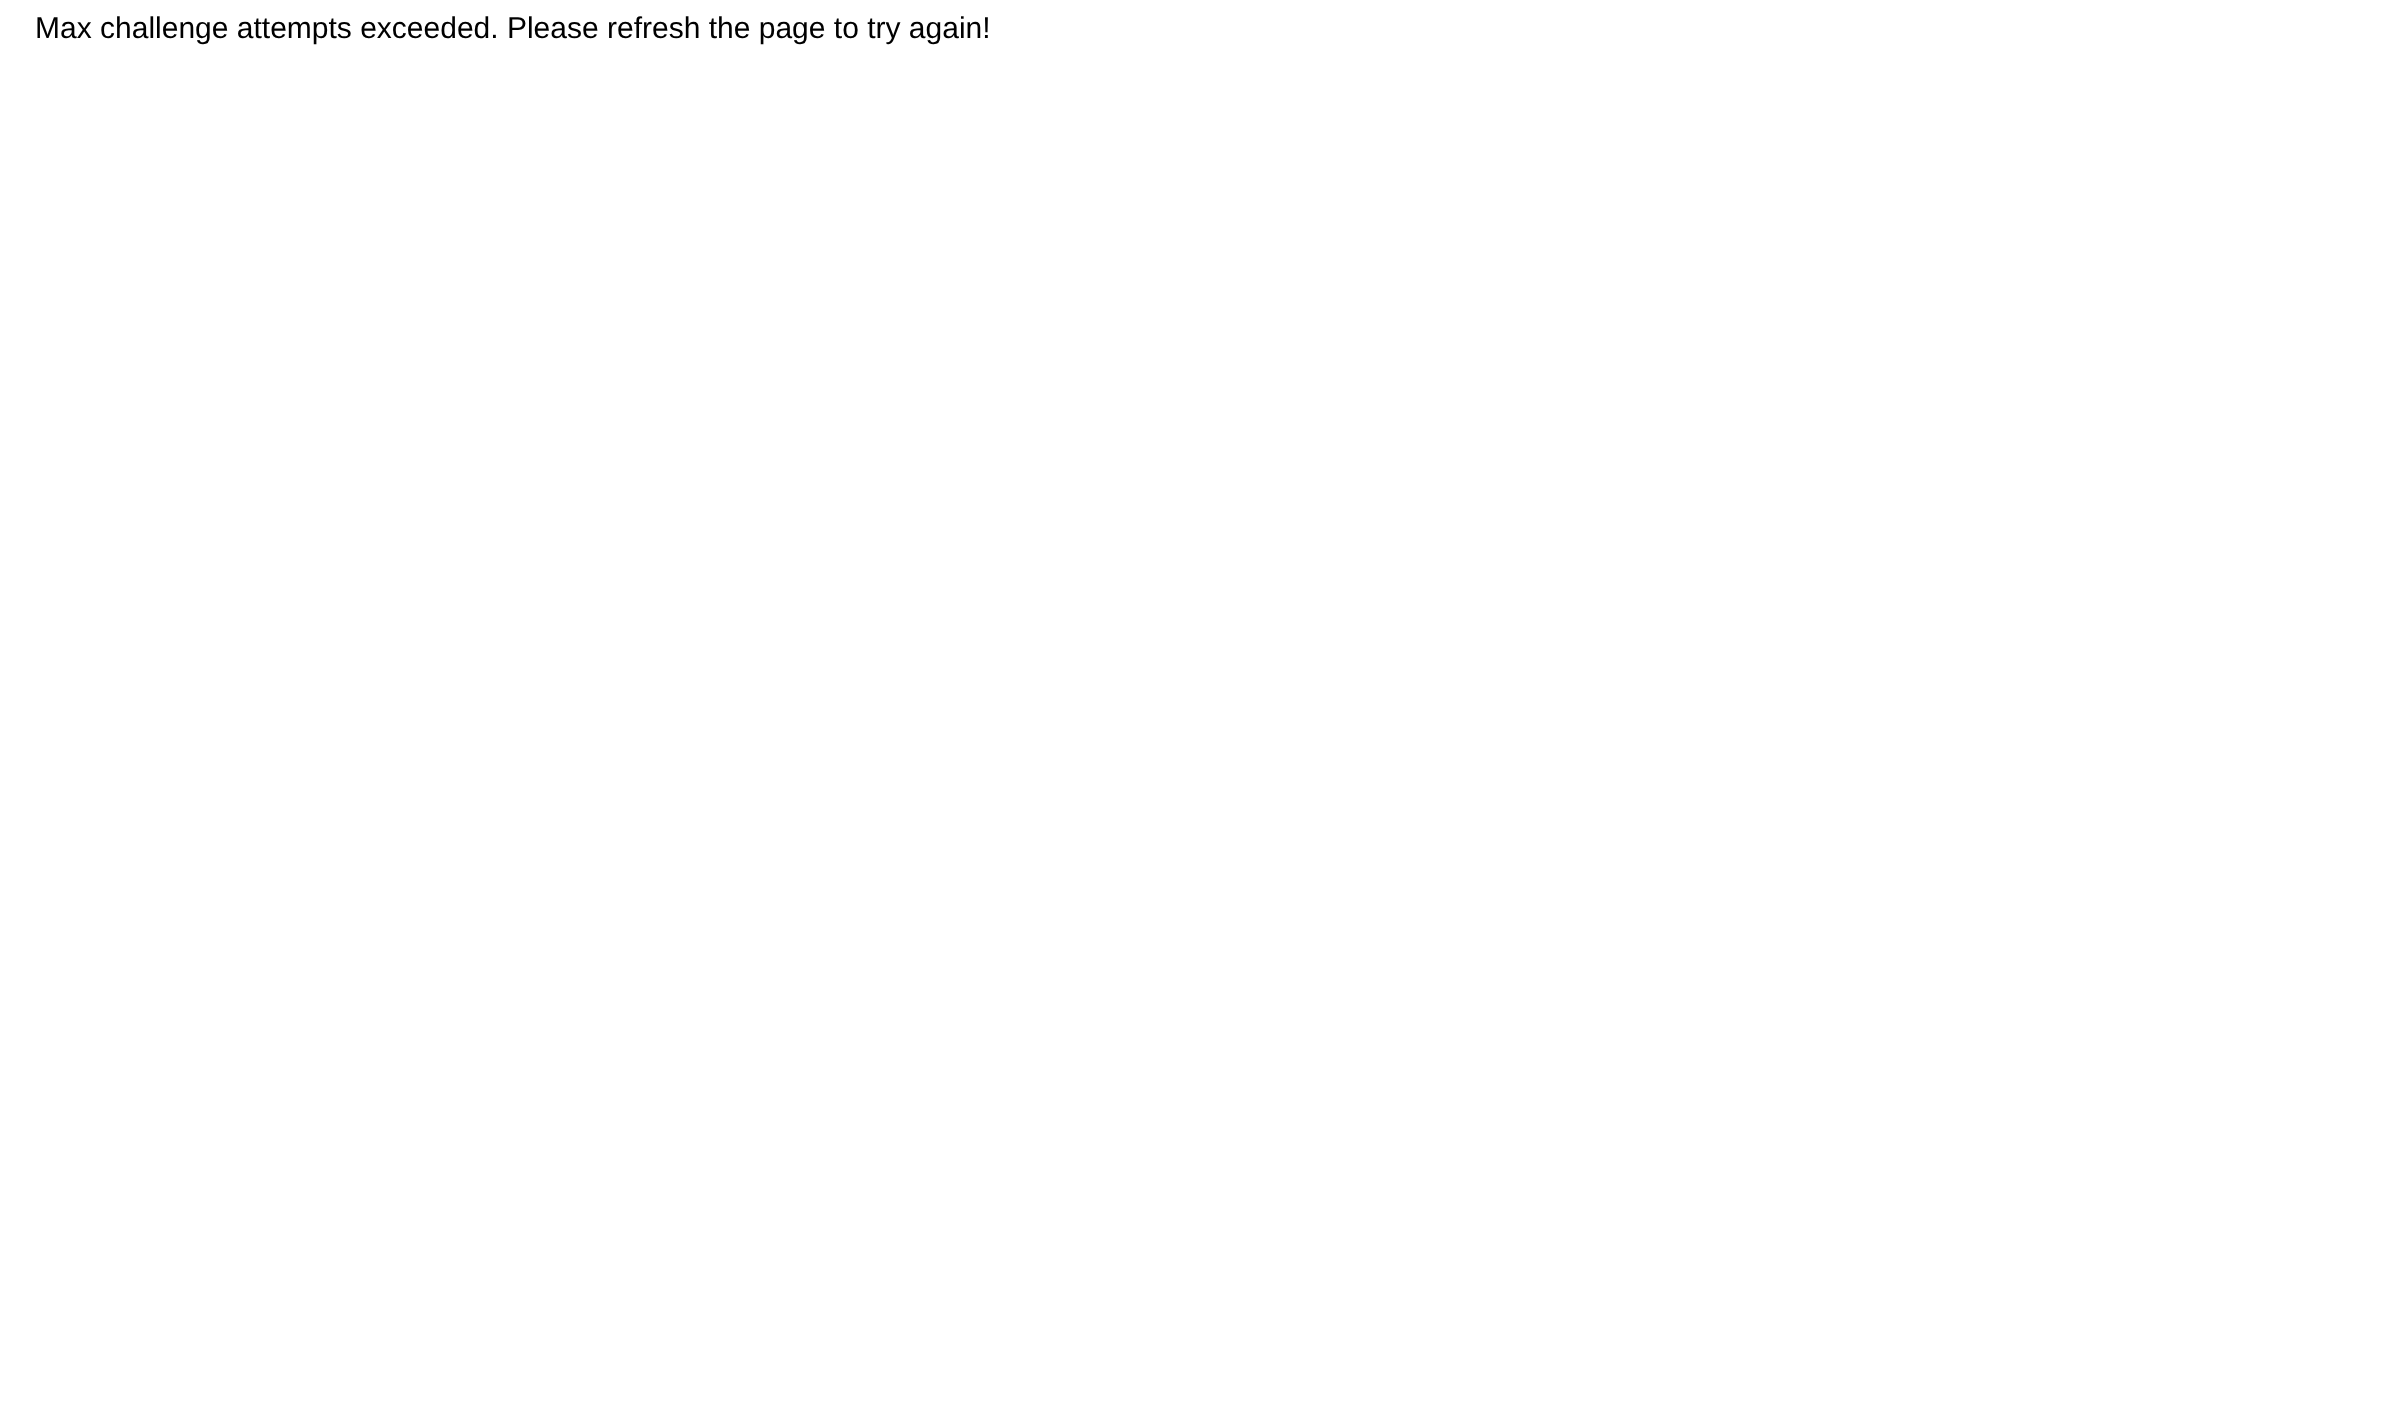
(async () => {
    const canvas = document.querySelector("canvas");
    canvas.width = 2390;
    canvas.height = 1407;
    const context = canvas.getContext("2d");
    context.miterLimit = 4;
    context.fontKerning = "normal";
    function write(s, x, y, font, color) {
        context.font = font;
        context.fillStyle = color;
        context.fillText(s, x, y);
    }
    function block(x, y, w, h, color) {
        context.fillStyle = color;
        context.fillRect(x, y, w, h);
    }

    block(0, 0, 2390, 1407, "rgb(255, 255, 255)");
    write("Max challenge attempts exceeded. Please refresh the page to try again!", 35, 38, "30px Liberation Sans", "rgb(0, 0, 0)");
})();
